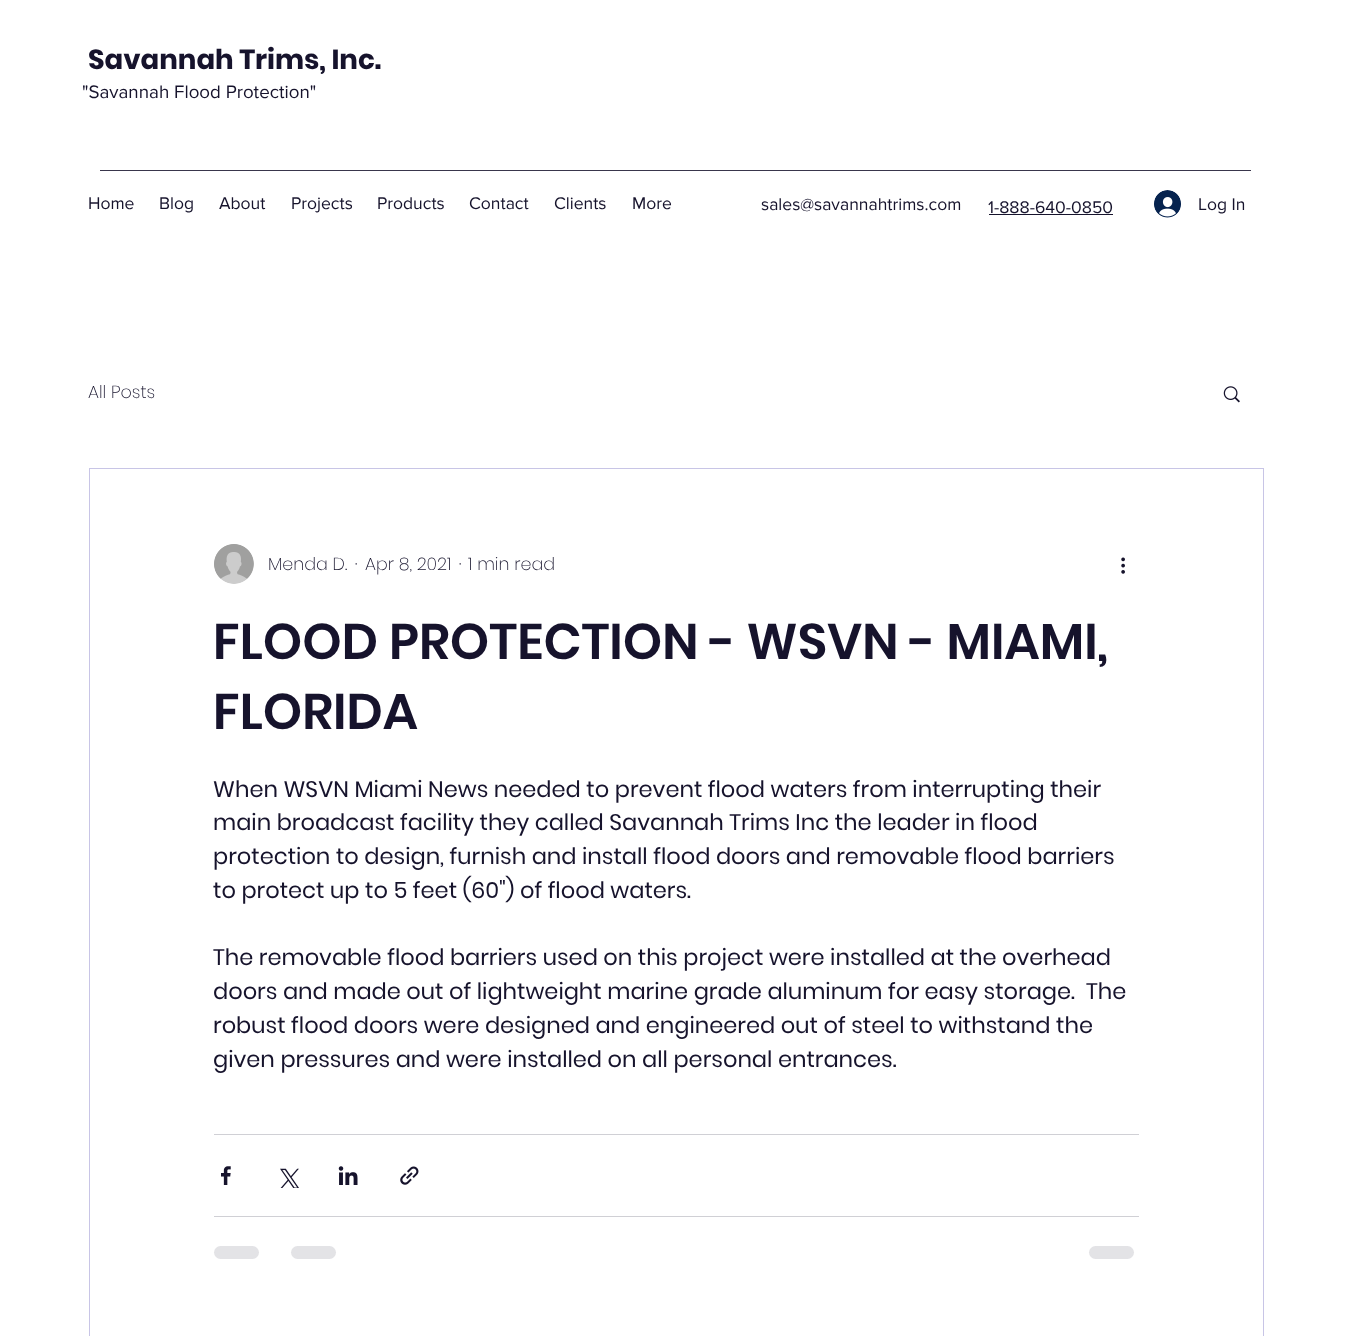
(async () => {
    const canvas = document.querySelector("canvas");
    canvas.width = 1351;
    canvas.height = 1336;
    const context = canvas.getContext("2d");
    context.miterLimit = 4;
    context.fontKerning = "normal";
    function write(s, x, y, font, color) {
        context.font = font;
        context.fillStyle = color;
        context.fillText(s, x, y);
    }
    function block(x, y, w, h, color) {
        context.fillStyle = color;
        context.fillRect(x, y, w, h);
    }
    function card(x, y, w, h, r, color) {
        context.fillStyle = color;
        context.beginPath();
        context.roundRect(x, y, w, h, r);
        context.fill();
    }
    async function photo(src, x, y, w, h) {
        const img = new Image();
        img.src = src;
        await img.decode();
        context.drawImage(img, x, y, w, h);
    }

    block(0, 0, 1351, 1336, "rgb(255, 255, 255)");
    write("Savannah Trims, Inc.", 88, 69, "bold 27.5px Poppins", "rgb(22, 19, 44)");
    write("\"Savannah Flood Protection\"", 82, 98, "18.75px 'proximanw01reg'", "rgb(22, 19, 44)");
    block(100, 170, 1151, 1, "rgb(57, 54, 76)");
    write("Home", 88, 209, "17.5px 'proximanw01reg'", "rgb(22, 19, 44)");
    write("Blog", 159, 209, "17.5px 'proximanw01reg'", "rgb(22, 19, 44)");
    write("About", 219, 209, "17.5px 'proximanw01reg'", "rgb(22, 19, 44)");
    write("Projects", 291, 209, "17.5px 'proximanw01reg'", "rgb(22, 19, 44)");
    write("Products", 377, 209, "17.5px 'proximanw01reg'", "rgb(22, 19, 44)");
    write("Contact", 469, 209, "17.5px 'proximanw01reg'", "rgb(22, 19, 44)");
    write("Clients", 554, 209, "17.5px 'proximanw01reg'", "rgb(22, 19, 44)");
    write("More", 632, 209, "17.5px 'proximanw01reg'", "rgb(22, 19, 44)");
    write("sales@savannahtrims.com", 761, 210, "17.5px 'proximanw01reg'", "rgb(22, 19, 44)");
    write("1-888-640-0850", 988, 213, "17.5px 'proximanw01reg'", "rgb(22, 19, 44)");
    block(989, 214, 124, 1, "rgb(22, 19, 44)");
    await photo("media/1.png", 1154, 190, 27, 28);
    write("Log In", 1198, 210, "17.5px 'proximanw01reg'", "rgb(22, 19, 44)");
    write("All Posts", 88, 398, "200 17.5px Poppins", "rgb(22, 19, 44)");
    await photo("media/2.png", 1223, 386, 17, 17);
    context.strokeStyle = "rgb(200, 197, 230)";
    context.strokeRect(89.5, 468.5, 1174, 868);
    await photo("media/3.png", 214, 544, 40, 40);
    write("Menda D.", 268, 570, "200 17.5px Poppins", "rgb(22, 19, 44)");
    write("·", 355, 570, "200 17.5px Poppins", "rgb(22, 19, 44)");
    write("Apr 8, 2021", 365, 570, "200 17.5px Poppins", "rgb(22, 19, 44)");
    write("·", 459, 570, "200 17.5px Poppins", "rgb(22, 19, 44)");
    write("1 min read", 468, 570, "200 17.5px Poppins", "rgb(22, 19, 44)");
    await photo("media/4.png", 1121, 557, 4, 17);
    write("FLOOD PROTECTION - WSVN - MIAMI,", 213, 659, "600 50px Poppins", "rgb(22, 19, 44)");
    write("FLORIDA", 213, 729, "600 50px Poppins", "rgb(22, 19, 44)");
    write("When WSVN Miami News needed to prevent flood waters from interrupting their", 213, 797, "22.5px Poppins", "rgb(22, 19, 44)");
    write("main broadcast facility they called Savannah Trims Inc the leader in flood", 213, 830, "22.5px Poppins", "rgb(22, 19, 44)");
    write("protection to design, furnish and install flood doors and removable flood barriers", 213, 864, "22.5px Poppins", "rgb(22, 19, 44)");
    write("to protect up to 5 feet (60\") of flood waters.", 213, 898, "22.5px Poppins", "rgb(22, 19, 44)");
    write("The removable flood barriers used on this project were installed at the overhead", 213, 965, "22.5px Poppins", "rgb(22, 19, 44)");
    write("doors and made out of lightweight marine grade aluminum for easy storage.  The", 213, 999, "22.5px Poppins", "rgb(22, 19, 44)");
    write("robust flood doors were designed and engineered out of steel to withstand the", 213, 1033, "22.5px Poppins", "rgb(22, 19, 44)");
    write("given pressures and were installed on all personal entrances.", 213, 1067, "22.5px Poppins", "rgb(22, 19, 44)");
    block(214, 1134, 925, 1, "rgb(208, 208, 213)");
    await photo("media/5.png", 221, 1166, 10, 19);
    await photo("media/6.png", 280, 1168, 19, 20);
    await photo("media/7.png", 338, 1166, 20, 19);
    await photo("media/8.png", 400, 1166, 19, 19);
    block(214, 1216, 925, 1, "rgb(208, 208, 213)");
    card(214, 1246, 45, 13, 6.5, "rgb(227, 227, 230)");
    card(291, 1246, 45, 13, 6.5, "rgb(227, 227, 230)");
    card(1089, 1246, 45, 13, 6.5, "rgb(227, 227, 230)");
})();
